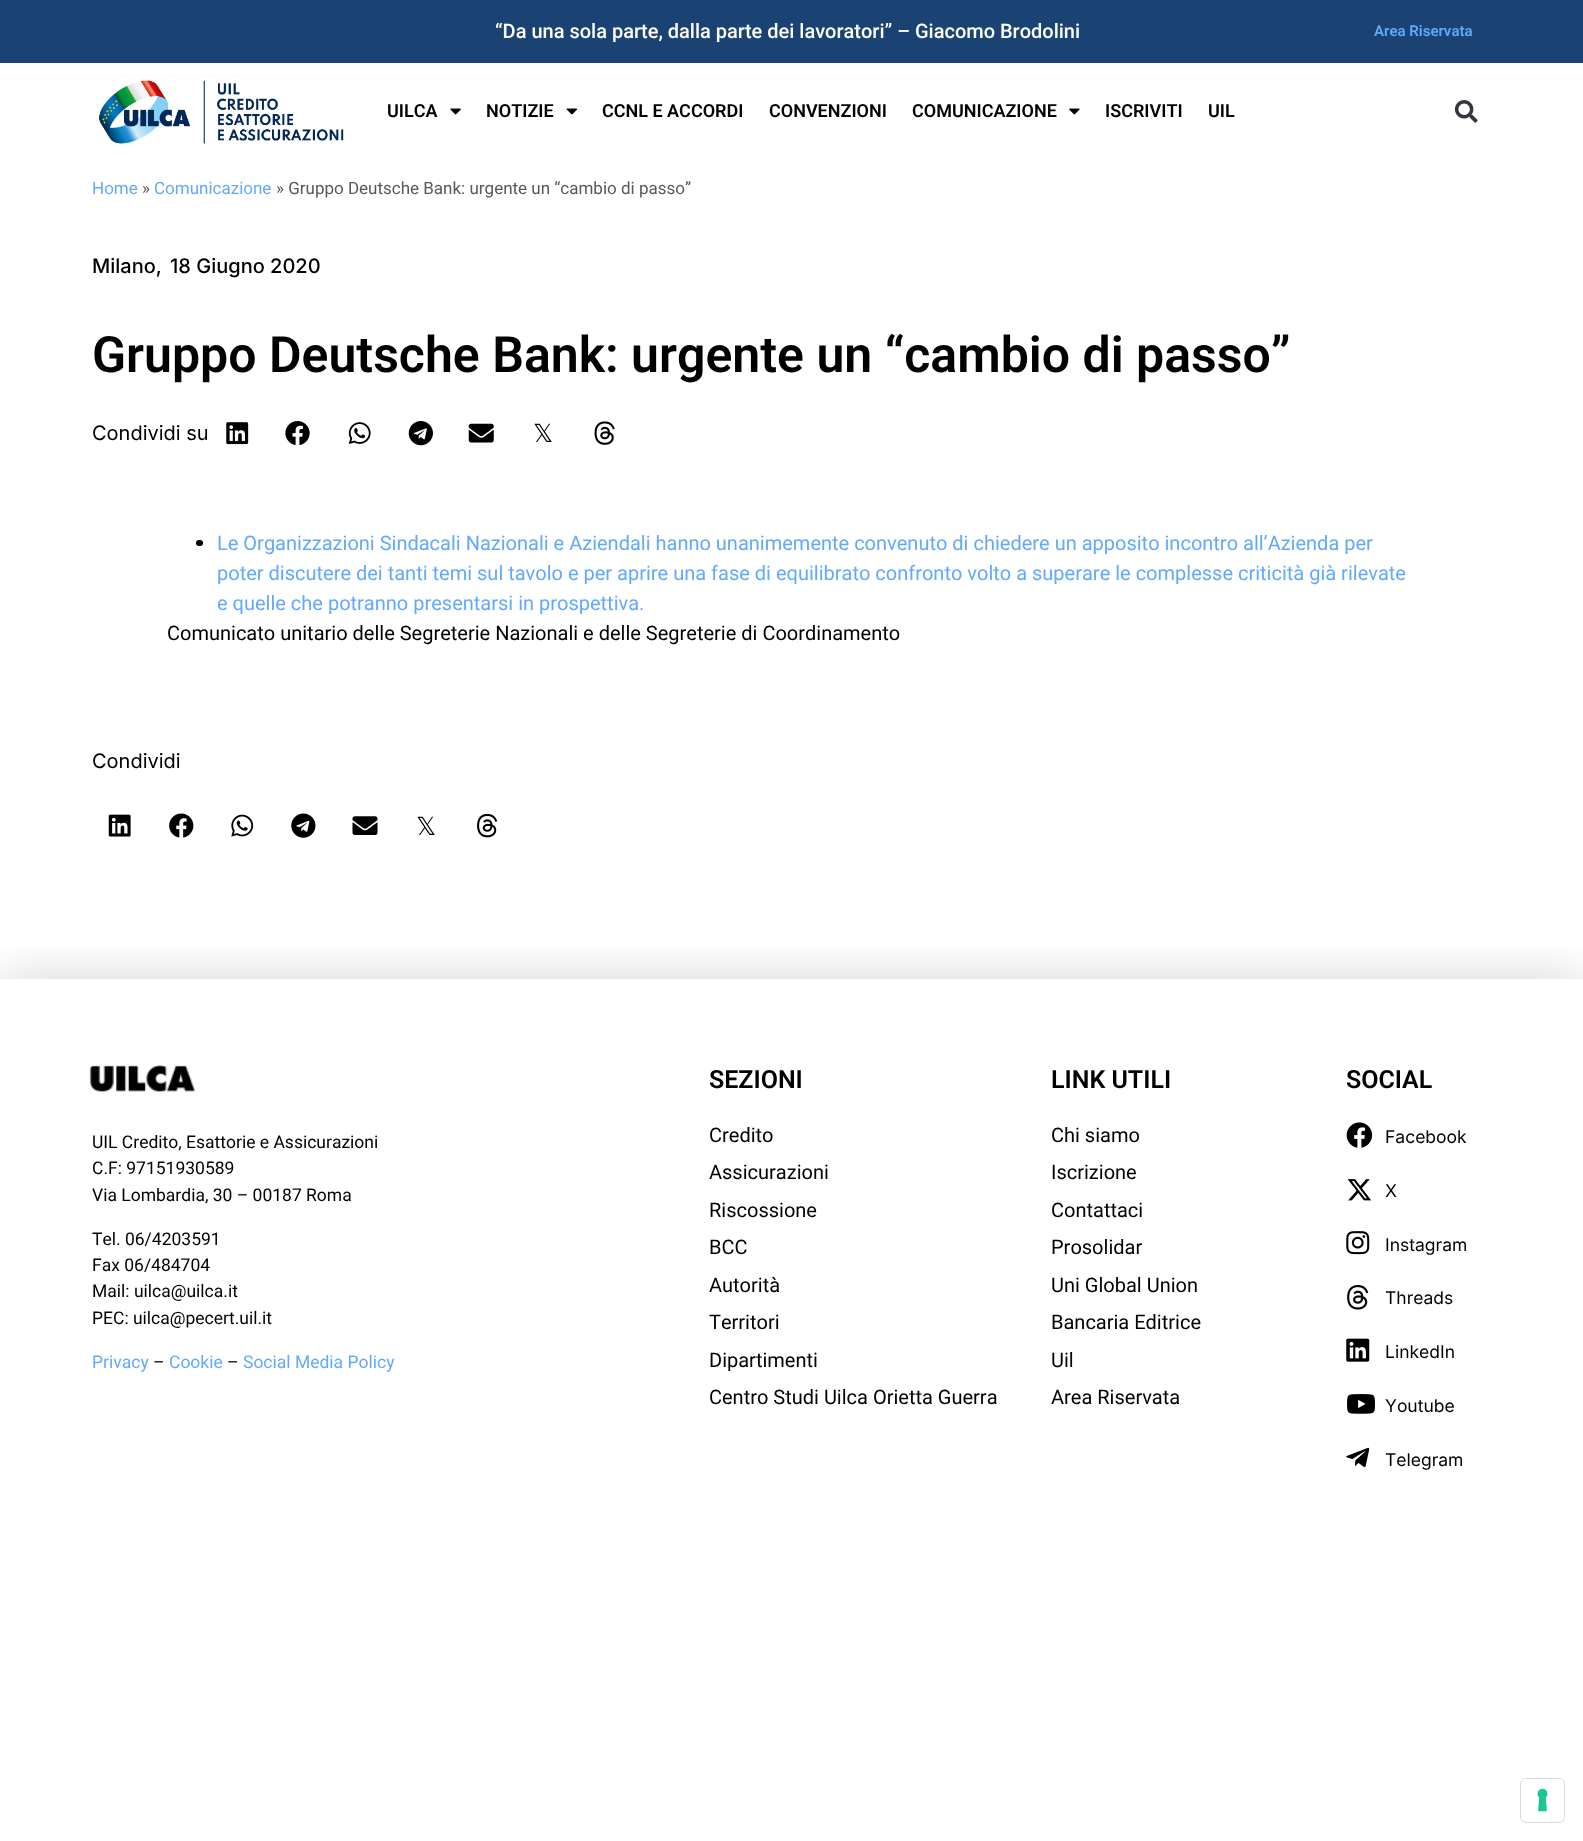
(async () => {
    const canvas = document.querySelector("canvas");
    canvas.width = 1583;
    canvas.height = 1841;
    const context = canvas.getContext("2d");
    context.miterLimit = 4;
    context.fontKerning = "none";
    function write(s, x, y, font, color) {
        context.font = font;
        context.fillStyle = color;
        context.fillText(s, x, y);
    }
    function block(x, y, w, h, color) {
        context.fillStyle = color;
        context.fillRect(x, y, w, h);
    }
    function card(x, y, w, h, r, color) {
        context.fillStyle = color;
        context.beginPath();
        context.roundRect(x, y, w, h, r);
        context.fill();
    }
    async function photo(src, x, y, w, h) {
        const img = new Image();
        img.src = src;
        await img.decode();
        context.drawImage(img, x, y, w, h);
    }

    block(0, 0, 1583, 1841, "rgb(255, 255, 255)");
    block(0, 0, 1583, 63, "rgb(26, 66, 115)");
    write("“Da una sola parte, dalla parte dei lavoratori” – Giacomo Brodolini", 495, 38, "500 20px Roboto", "rgb(255, 255, 255)");
    write("Area Riservata", 1374, 36, "600 15px Roboto", "rgb(99, 169, 251)");
    await photo("media/1.png", 99, 80, 245, 64);
    write("UILCA", 387, 117, "600 18px Roboto", "rgb(0, 0, 0)");
    await photo("media/2.png", 450, 108, 11, 7);
    write("NOTIZIE", 486, 117, "600 18px Roboto", "rgb(0, 0, 0)");
    await photo("media/3.png", 566, 108, 12, 7);
    write("CCNL E ACCORDI", 602, 117, "600 18px Roboto", "rgb(0, 0, 0)");
    write("CONVENZIONI", 769, 117, "600 18px Roboto", "rgb(0, 0, 0)");
    write("COMUNICAZIONE", 912, 117, "600 18px Roboto", "rgb(0, 0, 0)");
    await photo("media/4.png", 1069, 108, 11, 7);
    write("ISCRIVITI", 1105, 117, "600 18px Roboto", "rgb(0, 0, 0)");
    write("UIL", 1208, 117, "600 18px Roboto", "rgb(0, 0, 0)");
    await photo("media/5.png", 1454, 100, 24, 23);
    write("Home", 92, 194, "17px Roboto", "rgb(99, 169, 251)");
    write("»", 142, 194, "17px Roboto", "rgb(84, 89, 95)");
    write("Comunicazione", 154, 194, "17px Roboto", "rgb(99, 169, 251)");
    write("» Gruppo Deutsche Bank: urgente un “cambio di passo”", 276, 194, "17px Roboto", "rgb(84, 89, 95)");
    write("Milano,", 92, 273, "500 20px Inter", "rgb(0, 0, 0)");
    write("18 Giugno 2020", 170, 273, "500 20px Inter", "rgb(0, 0, 0)");
    write("Gruppo Deutsche Bank: urgente un “cambio di passo”", 92, 372, "600 50px Roboto", "rgb(0, 0, 0)");
    write("Condividi su", 92, 440, "20px Inter", "rgb(0, 0, 0)");
    await photo("media/6.png", 226, 422, 23, 23);
    await photo("media/7.png", 285, 421, 25, 24);
    await photo("media/8.png", 348, 422, 23, 22);
    await photo("media/9.png", 408, 421, 25, 25);
    await photo("media/10.png", 468, 423, 26, 20);
    write("𝕏", 533, 442, "25px DejaVu Sans", "rgb(0, 0, 0)");
    await photo("media/11.png", 594, 421, 21, 24);
    card(196, 540, 7, 6, 3, "rgb(0, 0, 0)");
    write("Le Organizzazioni Sindacali Nazionali e Aziendali hanno unanimemente convenuto di chiedere un apposito incontro all’Azienda per", 217, 550, "20px Roboto", "rgb(99, 169, 251)");
    write("poter discutere dei tanti temi sul tavolo e per aprire una fase di equilibrato confronto volto a superare le complesse criticità già rilevate", 217, 580, "20px Roboto", "rgb(99, 169, 251)");
    write("e quelle che potranno presentarsi in prospettiva.", 217, 610, "20px Roboto", "rgb(99, 169, 251)");
    write("Comunicato unitario delle Segreterie Nazionali e delle Segreterie di Coordinamento", 167, 640, "20px Roboto", "rgb(0, 0, 0)");
    write("Condividi", 92, 768, "20px Inter", "rgb(0, 0, 0)");
    await photo("media/12.png", 108, 814, 23, 23);
    await photo("media/13.png", 169, 813, 25, 25);
    await photo("media/14.png", 231, 814, 23, 23);
    await photo("media/15.png", 291, 813, 25, 25);
    await photo("media/16.png", 352, 816, 26, 19);
    write("𝕏", 416, 835, "25px DejaVu Sans", "rgb(0, 0, 0)");
    await photo("media/17.png", 477, 813, 21, 25);
    context.save();
    context.beginPath();
    context.rect(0, 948, 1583, 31);
    context.clip();
    context.fillStyle = "rgba(0, 0, 0, 0.15)";
    context.filter = "blur(25px)";
    context.beginPath();
    context.rect(0, 976, 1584, 63);
    context.fill();
    context.filter = "none";
    context.restore();
    block(0, 1041, 1583, 36, "rgb(255, 255, 255)");
    await photo("media/18.png", 89, 1065, 107, 27);
    write("UIL Credito, Esattorie e Assicurazioni", 92, 1148, "17.5px Roboto", "rgb(0, 0, 0)");
    write("C.F: 97151930589", 92, 1174, "17.5px Roboto", "rgb(0, 0, 0)");
    write("Via Lombardia, 30 – 00187 Roma", 92, 1201, "17.5px Roboto", "rgb(0, 0, 0)");
    write("Tel. 06/4203591", 92, 1245, "17.5px Roboto", "rgb(0, 0, 0)");
    write("Fax 06/484704", 92, 1271, "17.5px Roboto", "rgb(0, 0, 0)");
    write("Mail: uilca@uilca.it", 92, 1297, "17.5px Roboto", "rgb(0, 0, 0)");
    write("PEC: uilca@pecert.uil.it", 92, 1324, "17.5px Roboto", "rgb(0, 0, 0)");
    write("Privacy", 92, 1368, "17.5px Roboto", "rgb(99, 169, 251)");
    write("–", 153, 1368, "17.5px Roboto", "rgb(0, 0, 0)");
    write("Cookie", 169, 1368, "17.5px Roboto", "rgb(99, 169, 251)");
    write("–", 227, 1368, "17.5px Roboto", "rgb(0, 0, 0)");
    write("Social Media Policy", 243, 1368, "17.5px Roboto", "rgb(99, 169, 251)");
    write("SEZIONI", 709, 1088, "600 25px Roboto", "rgb(0, 0, 0)");
    write("Credito", 709, 1142, "20px Roboto", "rgb(0, 0, 0)");
    write("Assicurazioni", 709, 1179, "20px Roboto", "rgb(0, 0, 0)");
    write("Riscossione", 709, 1217, "20px Roboto", "rgb(0, 0, 0)");
    write("BCC", 709, 1254, "20px Roboto", "rgb(0, 0, 0)");
    write("Autorità", 709, 1292, "20px Roboto", "rgb(0, 0, 0)");
    write("Territori", 709, 1329, "20px Roboto", "rgb(0, 0, 0)");
    write("Dipartimenti", 709, 1367, "20px Roboto", "rgb(0, 0, 0)");
    write("Centro Studi Uilca Orietta Guerra", 709, 1404, "20px Roboto", "rgb(0, 0, 0)");
    write("LINK UTILI", 1051, 1088, "600 25px Roboto", "rgb(0, 0, 0)");
    write("Chi siamo", 1051, 1142, "20px Roboto", "rgb(0, 0, 0)");
    write("Iscrizione", 1051, 1179, "20px Roboto", "rgb(0, 0, 0)");
    write("Contattaci", 1051, 1217, "20px Roboto", "rgb(0, 0, 0)");
    write("Prosolidar", 1051, 1254, "20px Roboto", "rgb(0, 0, 0)");
    write("Uni Global Union", 1051, 1292, "20px Roboto", "rgb(0, 0, 0)");
    write("Bancaria Editrice", 1051, 1329, "20px Roboto", "rgb(0, 0, 0)");
    write("Uil", 1051, 1367, "20px Roboto", "rgb(0, 0, 0)");
    write("Area Riservata", 1051, 1404, "20px Roboto", "rgb(0, 0, 0)");
    write("SOCIAL", 1346, 1088, "600 25px Roboto", "rgb(0, 0, 0)");
    await photo("media/19.png", 1346, 1122, 27, 26);
    write("Facebook", 1385, 1143, "17.5px Inter", "rgb(0, 0, 0)");
    await photo("media/20.png", 1347, 1179, 25, 22);
    write("X", 1385, 1197, "17.5px Inter", "rgb(0, 0, 0)");
    await photo("media/21.png", 1346, 1231, 24, 24);
    write("Instagram", 1385, 1251, "17.5px Inter", "rgb(0, 0, 0)");
    await photo("media/22.png", 1347, 1285, 22, 25);
    write("Threads", 1385, 1304, "17.5px Inter", "rgb(0, 0, 0)");
    await photo("media/23.png", 1346, 1338, 24, 24);
    write("LinkedIn", 1385, 1358, "17.5px Inter", "rgb(0, 0, 0)");
    await photo("media/24.png", 1347, 1394, 28, 20);
    write("Youtube", 1385, 1412, "17.5px Inter", "rgb(0, 0, 0)");
    await photo("media/25.png", 1346, 1447, 24, 21);
    write("Telegram", 1385, 1466, "17.5px Inter", "rgb(0, 0, 0)");
    context.beginPath();
    context.roundRect(1520.5, 1778.5, 44, 44, 5.5);
    context.strokeStyle = "rgb(217, 217, 217)";
    context.stroke();
    card(1521, 1779, 43, 42, 5, "rgb(255, 255, 255)");
    await photo("media/26.png", 1537, 1788, 11, 24);
})();
